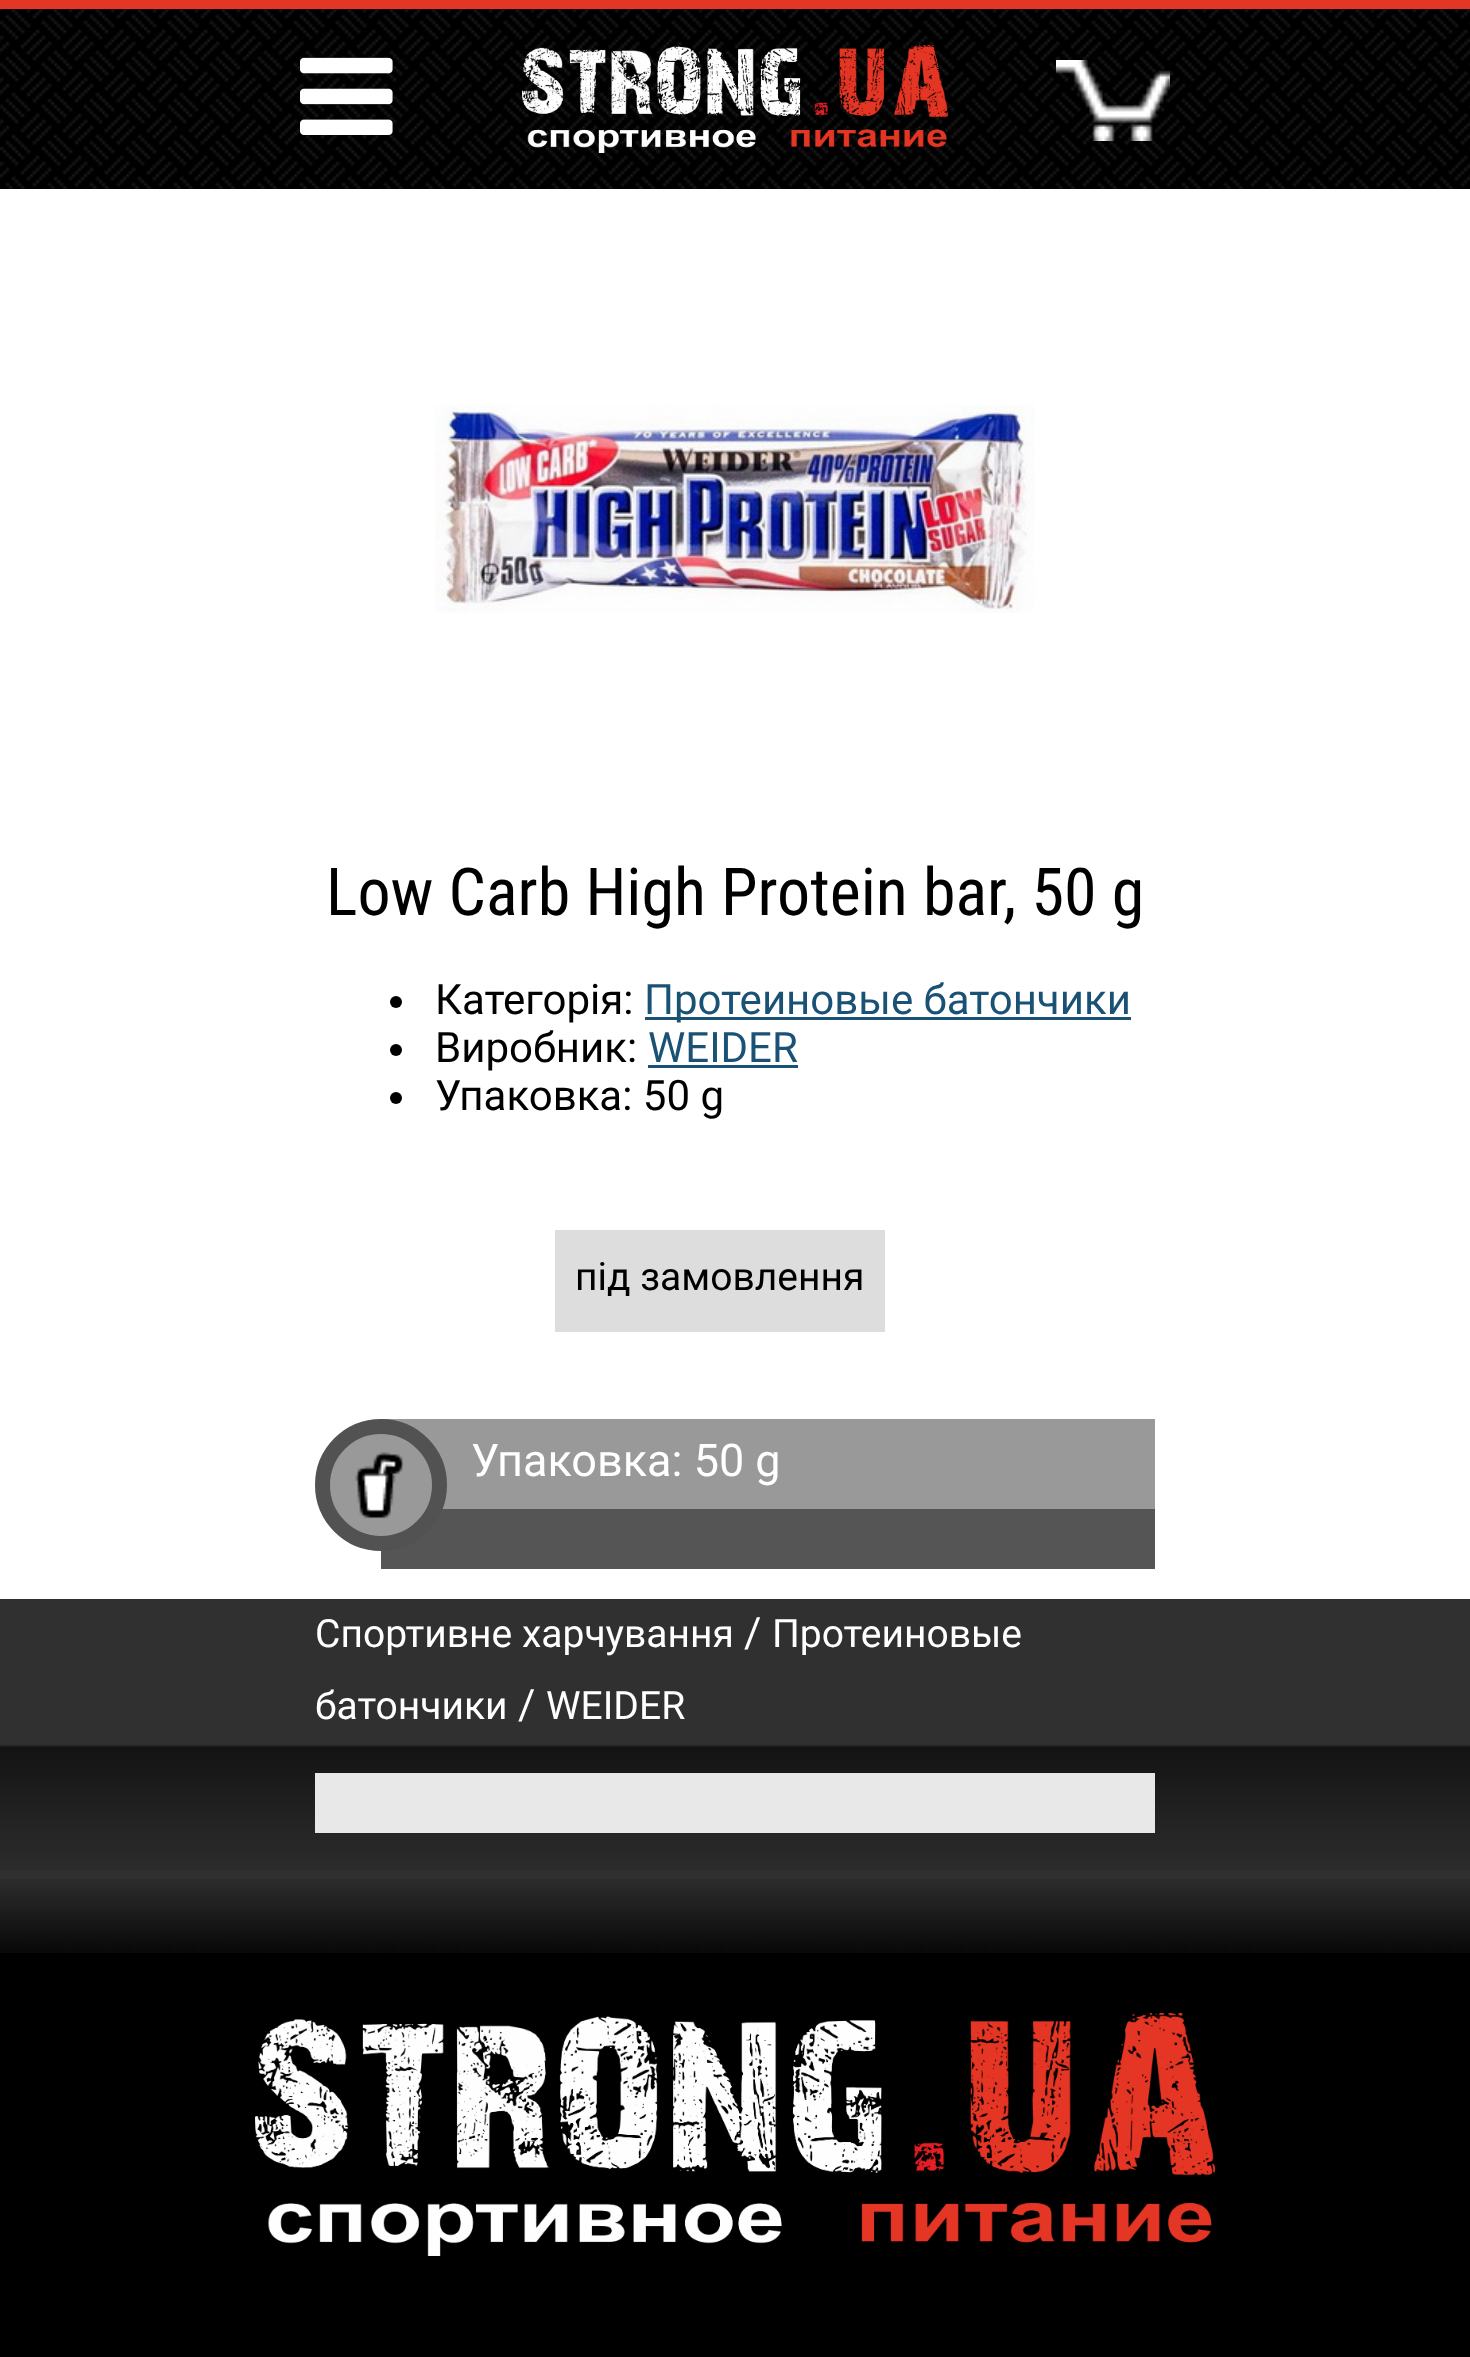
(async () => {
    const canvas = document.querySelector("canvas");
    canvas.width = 1470;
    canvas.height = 2357;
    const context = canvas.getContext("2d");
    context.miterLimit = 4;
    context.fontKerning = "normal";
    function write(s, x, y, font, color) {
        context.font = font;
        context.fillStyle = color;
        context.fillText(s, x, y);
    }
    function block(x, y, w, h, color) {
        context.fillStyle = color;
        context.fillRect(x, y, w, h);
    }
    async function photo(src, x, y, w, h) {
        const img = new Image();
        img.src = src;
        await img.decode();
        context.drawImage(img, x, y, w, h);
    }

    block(0, 0, 1470, 2357, "rgb(255, 255, 255)");
    await photo("media/1.png", 0, 9, 1470, 180);
    block(0, 0, 1470, 9, "rgb(229, 53, 36)");
    await photo("media/2.png", 300, 57, 93, 78);
    await photo("media/3.png", 522, 45, 426, 108);
    await photo("media/4.png", 1056, 60, 114, 81);
    await photo("media/5.png", 435, 405, 600, 208);
    write("Low Carb High Protein bar, 50 g", 326, 915, "66px Roboto Condensed", "rgb(0, 0, 0)");
    context.beginPath();
    context.arc(396, 1002, 6, 0, Math.PI * 2);
    context.fill();
    write("Категорія:", 435, 1014, "42px Roboto", "rgb(0, 0, 0)");
    block(645, 1017, 486, 3, "rgb(26, 82, 118)");
    write("Протеиновые батончики", 644, 1014, "42px Roboto", "rgb(26, 82, 118)");
    context.fillStyle = "rgb(0, 0, 0)";
    context.beginPath();
    context.arc(396, 1050, 6, 0, Math.PI * 2);
    context.fill();
    write("Виробник:", 435, 1062, "42px Roboto", "rgb(0, 0, 0)");
    write("WEIDER", 648, 1062, "42px Roboto", "rgb(26, 82, 118)");
    block(648, 1065, 150, 3, "rgb(26, 82, 118)");
    context.fillStyle = "rgb(0, 0, 0)";
    context.beginPath();
    context.arc(396, 1098, 6, 0, Math.PI * 2);
    context.fill();
    write("Упаковка: 50 g", 435, 1110, "42px Roboto", "rgb(0, 0, 0)");
    block(555, 1230, 330, 102, "rgb(221, 221, 221)");
    write("під замовлення", 575, 1290, "39px Roboto", "rgb(0, 0, 0)");
    block(382, 1419, 773, 90, "rgb(153, 153, 153)");
    block(381, 1509, 774, 60, "rgb(85, 85, 85)");
    context.fillStyle = "rgb(153, 153, 153)";
    context.beginPath();
    context.arc(381, 1485, 58.5, 0, Math.PI * 2);
    context.fill();
    context.strokeStyle = "rgb(82, 82, 82)";
    context.lineWidth = 15;
    context.stroke();
    await photo("media/6.png", 355, 1452, 49, 67);
    write("Упаковка: 50 g", 471, 1476, "45px Roboto", "rgb(255, 255, 255)");
    block(0, 1599, 1470, 280, "rgb(48, 48, 48)");
    write("Спортивне харчування", 315, 1647, "39px Roboto", "rgb(255, 255, 255)");
    write("/", 744, 1647, "42px Roboto", "rgb(255, 255, 255)");
    write("Протеиновые", 772, 1647, "39px Roboto", "rgb(255, 255, 255)");
    write("батончики", 315, 1719, "39px Roboto", "rgb(255, 255, 255)");
    write("/", 518, 1719, "42px Roboto", "rgb(255, 255, 255)");
    write("WEIDER", 546, 1719, "39px Roboto", "rgb(255, 255, 255)");
    await photo("media/7.png", 0, 1745, 1470, 125);
    await photo("media/8.png", 0, 1879, 1470, 74);
    block(315, 1773, 840, 60, "rgb(232, 232, 232)");
    block(0, 1953, 1470, 404, "rgb(0, 0, 0)");
    await photo("media/9.png", 255, 2013, 960, 243);
})();
